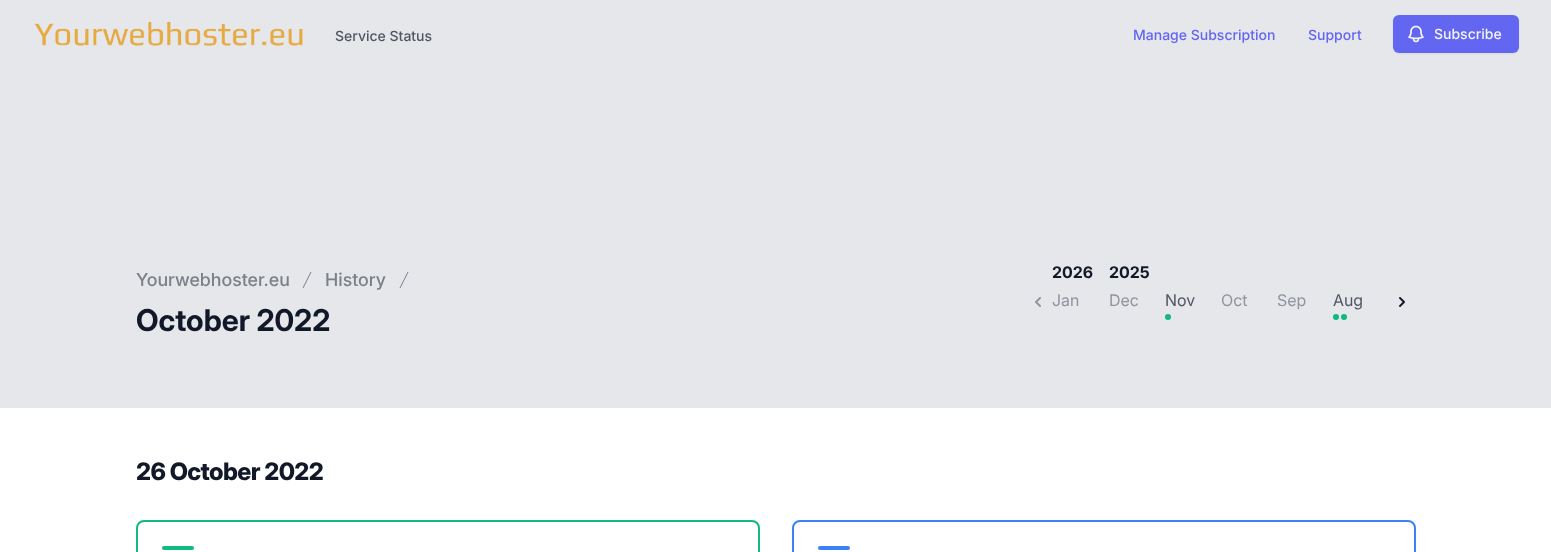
(async () => {
    const canvas = document.querySelector("canvas");
    canvas.width = 1551;
    canvas.height = 552;
    const context = canvas.getContext("2d");
    context.miterLimit = 4;
    context.fontKerning = "normal";
    function write(s, x, y, font, color) {
        context.font = font;
        context.fillStyle = color;
        context.fillText(s, x, y);
    }
    function block(x, y, w, h, color) {
        context.fillStyle = color;
        context.fillRect(x, y, w, h);
    }
    function card(x, y, w, h, r, color) {
        context.fillStyle = color;
        context.beginPath();
        context.roundRect(x, y, w, h, r);
        context.fill();
    }
    async function photo(src, x, y, w, h) {
        const img = new Image();
        img.src = src;
        await img.decode();
        context.drawImage(img, x, y, w, h);
    }

    block(0, 0, 1551, 552, "rgb(255, 255, 255)");
    block(0, 0, 1551, 408, "rgb(229, 231, 235)");
    await photo("media/1.png", 35, 21, 268, 25);
    write("Service Status", 335, 41, "500 14px 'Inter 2'", "rgb(81, 86, 98)");
    write("Manage Subscription", 1133, 40, "500 14px 'Inter 2'", "rgb(99, 102, 241)");
    write("Support", 1308, 40, "500 14px 'Inter 2'", "rgb(99, 102, 241)");
    context.fillStyle = "rgba(0, 0, 0, 0.05)";
    context.filter = "blur(1px)";
    context.beginPath();
    context.roundRect(1393, 16, 126, 38, 6);
    context.fill();
    context.filter = "none";
    card(1393, 15, 126, 38, 6, "rgb(99, 102, 241)");
    await photo("media/2.png", 1408, 25, 16, 18);
    write("Subscribe", 1434, 39, "500 14px 'Inter 2'", "rgb(243, 244, 246)");
    write("Yourwebhoster.eu", 136, 286, "500 18px Inter", "rgb(123, 128, 137)");
    context.beginPath();
    context.moveTo(302.5, 288);
    context.lineTo(310.5, 272);
    context.lineTo(311.5, 272);
    context.lineTo(303.5, 288);
    context.closePath();
    context.fill();
    write("History", 325, 286, "500 18px Inter", "rgb(123, 128, 137)");
    context.beginPath();
    context.moveTo(399.5, 288);
    context.lineTo(407.5, 272);
    context.lineTo(408.5, 272);
    context.lineTo(400.5, 288);
    context.closePath();
    context.fill();
    write("October 2022", 136, 331, "bold 30px Inter", "rgb(17, 24, 39)");
    await photo("media/3.png", 1035, 297, 6, 10);
    write("2026", 1052, 278, "bold 16px 'Inter 2'", "rgb(17, 24, 39)");
    write("Jan", 1052, 306, "16px Inter", "rgb(144, 148, 157)");
    write("2025", 1109, 278, "bold 16px 'Inter 2'", "rgb(17, 24, 39)");
    write("Dec", 1109, 306, "16px Inter", "rgb(144, 148, 157)");
    write("Nov", 1165, 306, "16px Inter", "rgb(81, 86, 98)");
    context.fillStyle = "rgb(16, 185, 129)";
    context.beginPath();
    context.arc(1168, 317, 3, 0, Math.PI * 2);
    context.fill();
    write("Oct", 1221, 306, "16px Inter", "rgb(144, 148, 157)");
    write("Sep", 1277, 306, "16px Inter", "rgb(144, 148, 157)");
    write("Aug", 1333, 306, "16px Inter", "rgb(81, 86, 98)");
    context.fillStyle = "rgb(16, 185, 129)";
    context.beginPath();
    context.arc(1336, 317, 3, 0, Math.PI * 2);
    context.fill();
    context.beginPath();
    context.arc(1344, 317, 3, 0, Math.PI * 2);
    context.fill();
    await photo("media/4.png", 1399, 297, 6, 10);
    context.letterSpacing = "-0.6px";
    write("26 October 2022", 136, 480, "800 24px Inter", "rgb(17, 24, 39)");
    context.beginPath();
    context.roundRect(137, 521, 622, 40, 7);
    context.strokeStyle = "rgb(16, 185, 129)";
    context.lineWidth = 2;
    context.stroke();
    card(162, 546, 32, 4, 2, "rgb(16, 185, 129)");
    context.beginPath();
    context.roundRect(793, 521, 622, 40, 7);
    context.strokeStyle = "rgb(59, 130, 246)";
    context.stroke();
    card(818, 546, 32, 4, 2, "rgb(59, 130, 246)");
})();
